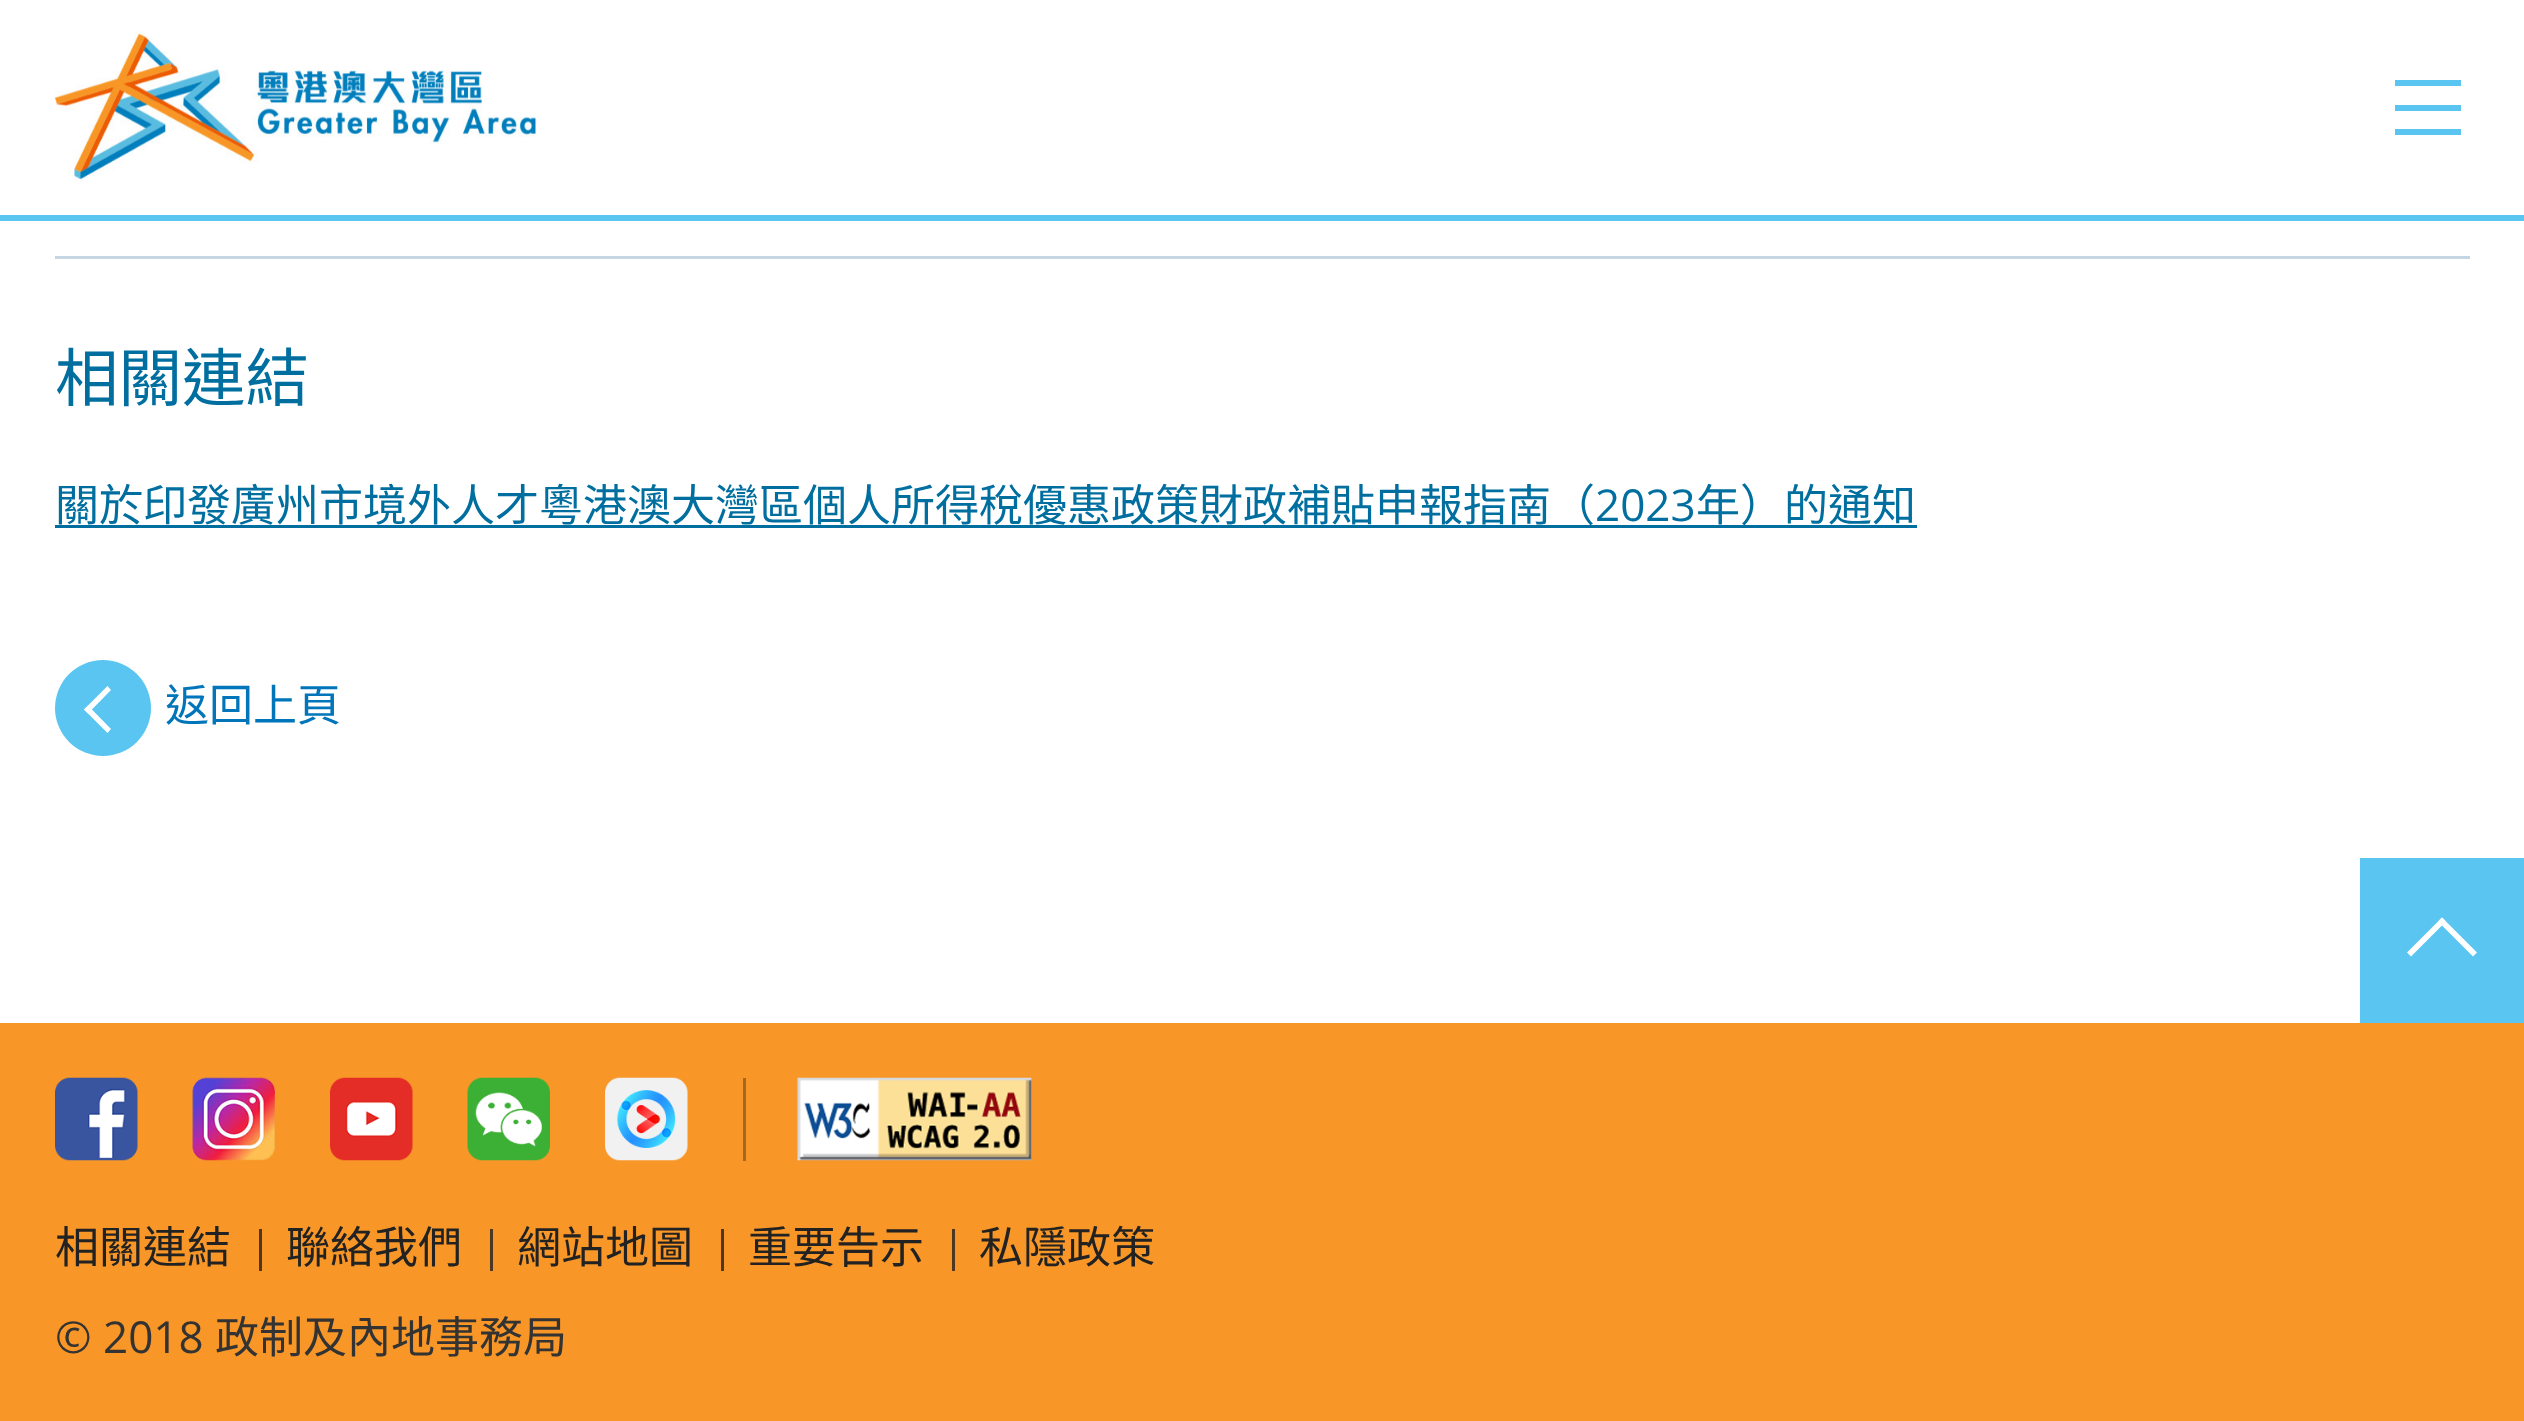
(async () => {
    const canvas = document.querySelector("canvas");
    canvas.width = 2524;
    canvas.height = 1421;
    const context = canvas.getContext("2d");
    context.miterLimit = 4;
    context.fontKerning = "normal";
    function write(s, x, y, font, color) {
        context.font = font;
        context.fillStyle = color;
        context.fillText(s, x, y);
    }
    function block(x, y, w, h, color) {
        context.fillStyle = color;
        context.fillRect(x, y, w, h);
    }
    async function photo(src, x, y, w, h) {
        const img = new Image();
        img.src = src;
        await img.decode();
        context.drawImage(img, x, y, w, h);
    }

    block(0, 0, 2524, 1421, "rgb(255, 255, 255)");
    block(0, 215, 2524, 6, "rgb(90, 197, 241)");
    await photo("media/1.png", 55, 31, 481, 152);
    block(2395, 80, 66, 6, "rgb(90, 197, 241)");
    block(2395, 105, 66, 6, "rgb(90, 197, 241)");
    block(2395, 129, 66, 6, "rgb(90, 197, 241)");
    block(55, 256, 2415, 3, "rgb(198, 214, 227)");
    write("相關連結", 55, 401, "63.5px Noto Sans CJK HK", "rgb(0, 111, 160)");
    block(55, 525, 1862, 3, "rgb(0, 111, 160)");
    write("關於印發廣州市境外人才粵港澳大灣區個人所得稅優惠政策財政補貼申報指南（", 55, 521, "44px Noto Sans CJK HK", "rgb(0, 111, 160)");
    write("2023", 1595, 521, "44px Open Sans", "rgb(0, 111, 160)");
    write("年）的通知", 1696, 521, "44px Noto Sans CJK HK", "rgb(0, 111, 160)");
    context.fillStyle = "rgb(90, 197, 241)";
    context.beginPath();
    context.arc(103, 708, 48, 0, Math.PI * 2);
    context.fill();
    write("返回上頁", 165, 721, "44px Noto Sans CJK HK", "rgb(0, 117, 185)");
    context.fillStyle = "rgb(255, 255, 255)";
    context.beginPath();
    context.moveTo(84, 709.5);
    context.lineTo(107.5, 686);
    context.lineTo(111, 690);
    context.lineTo(88, 713.5);
    context.closePath();
    context.fill();
    context.beginPath();
    context.moveTo(84, 709.5);
    context.lineTo(88, 705.5);
    context.lineTo(111, 729);
    context.lineTo(107.5, 733);
    context.closePath();
    context.fill();
    block(2360, 858, 164, 165, "rgb(90, 197, 241)");
    context.fillStyle = "rgb(255, 255, 255)";
    context.beginPath();
    context.moveTo(2407, 952.5);
    context.lineTo(2442, 917.5);
    context.lineTo(2446, 921.5);
    context.lineTo(2411, 956.5);
    context.closePath();
    context.fill();
    context.beginPath();
    context.moveTo(2438, 921.5);
    context.lineTo(2442, 917.5);
    context.lineTo(2477, 952.5);
    context.lineTo(2473, 956.5);
    context.closePath();
    context.fill();
    block(0, 1023, 2524, 398, "rgb(248, 151, 39)");
    await photo("media/2.png", 55, 1077, 83, 84);
    await photo("media/3.png", 192, 1077, 83, 84);
    await photo("media/4.png", 330, 1077, 83, 84);
    await photo("media/5.png", 467, 1077, 83, 84);
    await photo("media/6.png", 605, 1077, 83, 84);
    await photo("media/7.png", 797, 1077, 235, 84);
    block(743, 1078, 3, 83, "rgb(162, 104, 37)");
    write("相關連結", 55, 1263, "44px Noto Sans CJK HK", "rgb(34, 34, 34)");
    block(259, 1229, 3, 42, "rgb(77, 57, 35)");
    write("聯絡我們", 286, 1263, "44px Noto Sans CJK HK", "rgb(34, 34, 34)");
    block(490, 1229, 3, 42, "rgb(77, 57, 35)");
    write("網站地圖", 517, 1263, "44px Noto Sans CJK HK", "rgb(34, 34, 34)");
    block(721, 1229, 3, 42, "rgb(77, 57, 35)");
    write("重要告示", 748, 1263, "44px Noto Sans CJK HK", "rgb(34, 34, 34)");
    block(952, 1229, 3, 42, "rgb(77, 57, 35)");
    write("私隱政策", 979, 1263, "44px Noto Sans CJK HK", "rgb(34, 34, 34)");
    write("© 2018", 55, 1353, "44px Open Sans", "rgb(51, 51, 51)");
    write("政制及內地事務局", 215, 1353, "44px Noto Sans CJK HK", "rgb(51, 51, 51)");
})();
